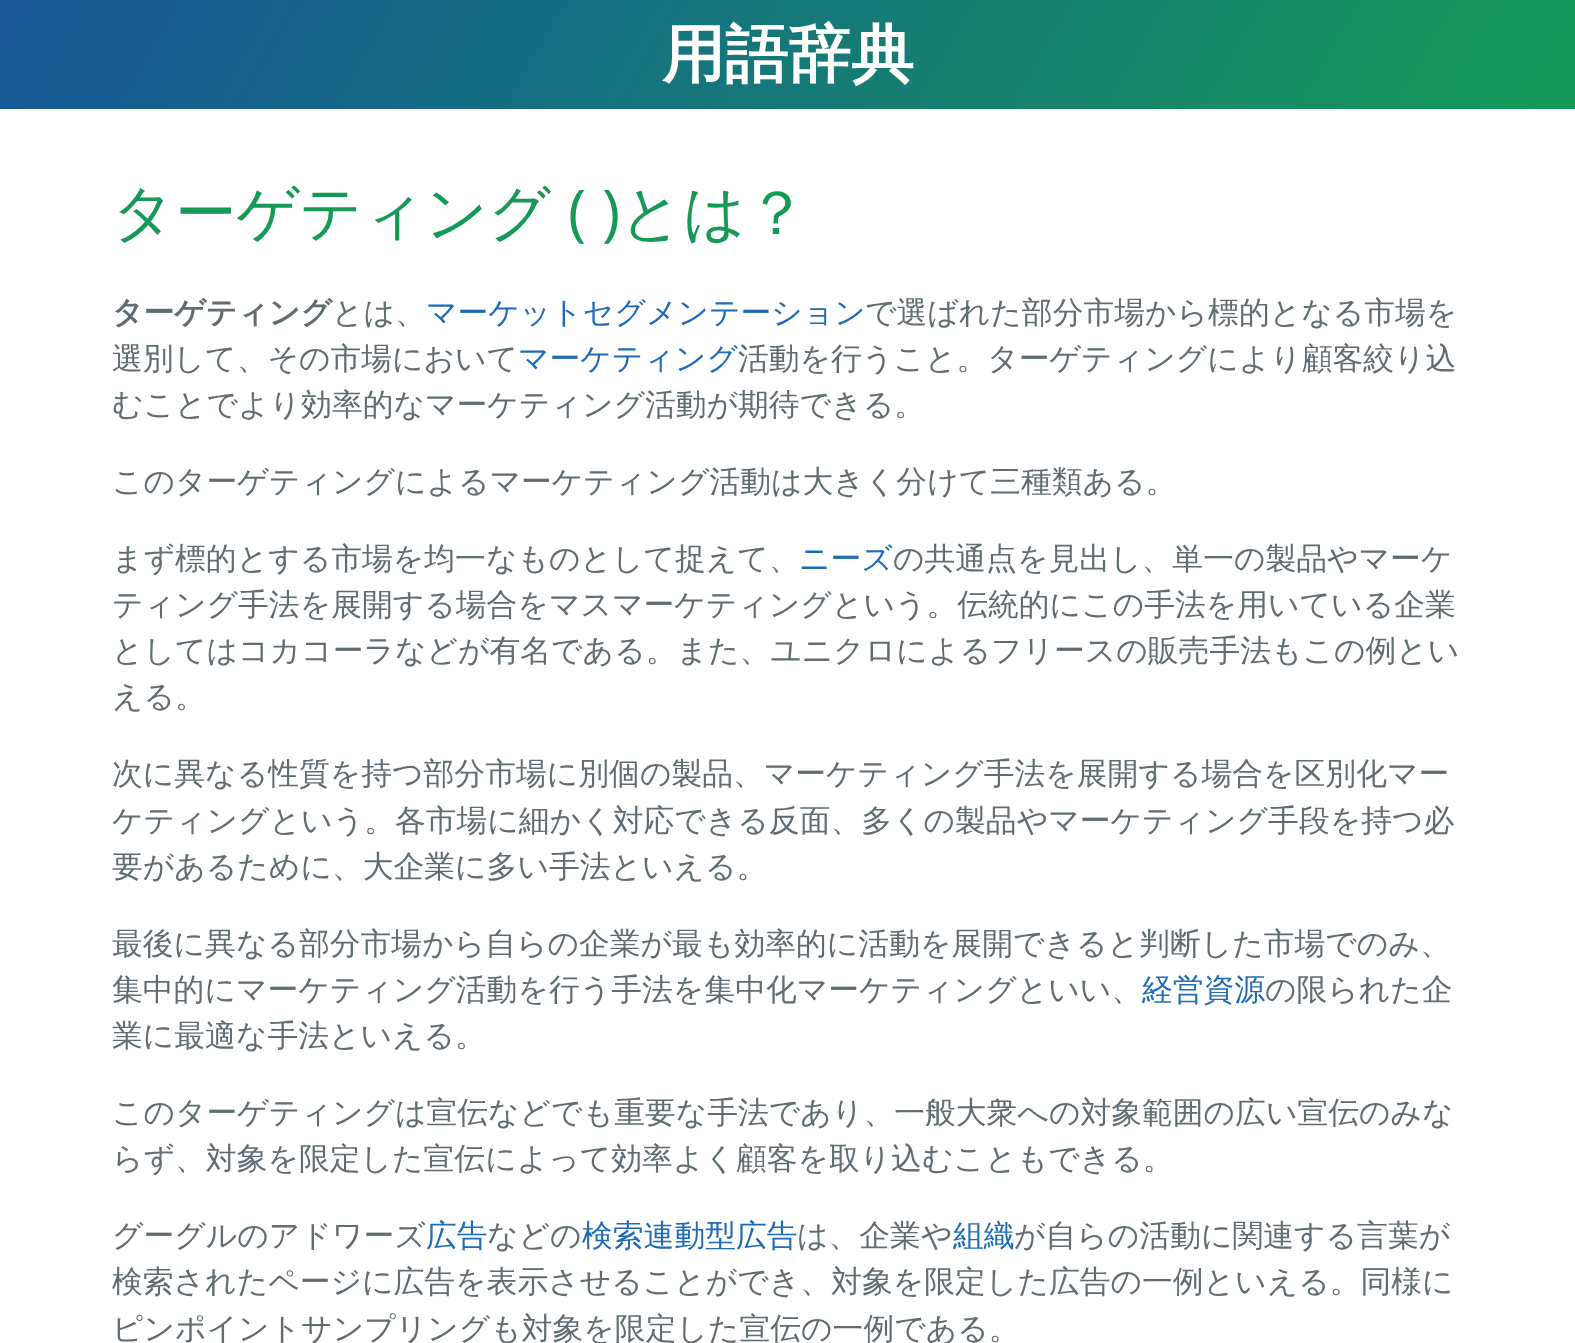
(async () => {
    const canvas = document.querySelector("canvas");
    canvas.width = 1575;
    canvas.height = 1343;
    const context = canvas.getContext("2d");
    context.miterLimit = 4;
    context.fontKerning = "normal";
    function write(s, x, y, font, color) {
        context.font = font;
        context.fillStyle = color;
        context.fillText(s, x, y);
    }
    function block(x, y, w, h, color) {
        context.fillStyle = color;
        context.fillRect(x, y, w, h);
    }
    let gradient;

    block(0, 0, 1575, 1343, "rgb(255, 255, 255)");
    gradient = context.createLinearGradient(173, -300, 1402, 409);
    gradient.addColorStop(0, "rgb(21, 87, 153)");
    gradient.addColorStop(1, "rgb(21, 153, 87)");
    context.fillStyle = gradient;
    context.fillRect(0, 0, 1575, 109);
    write("用語辞典", 662, 76, "bold 63px WenQuanYi Zen Hei", "rgb(255, 255, 255)");
    write("ターゲティング", 112, 234, "500 61.5px WenQuanYi Zen Hei", "rgb(21, 153, 87)");
    write("( )", 568, 234, "61.5px Open Sans", "rgb(21, 153, 87)");
    write("とは？", 620, 234, "500 61.5px WenQuanYi Zen Hei", "rgb(21, 153, 87)");
    write("ターゲティング", 112, 323, "bold 30.8px WenQuanYi Zen Hei", "rgb(96, 108, 113)");
    write("とは、", 332, 323, "500 30.8px WenQuanYi Zen Hei", "rgb(96, 108, 113)");
    write("マーケットセグメンテーション", 426, 323, "500 30.8px WenQuanYi Zen Hei", "rgb(30, 107, 184)");
    write("で選ばれた部分市場から標的となる市場を", 865, 323, "500 30.8px WenQuanYi Zen Hei", "rgb(96, 108, 113)");
    write("選別して、その市場において", 112, 369, "500 30.8px WenQuanYi Zen Hei", "rgb(96, 108, 113)");
    write("マーケティング", 518, 369, "500 30.8px WenQuanYi Zen Hei", "rgb(30, 107, 184)");
    write("活動を行うこと。ターゲティングにより顧客絞り込", 738, 369, "500 30.8px WenQuanYi Zen Hei", "rgb(96, 108, 113)");
    write("むことでより効率的なマーケティング活動が期待できる。", 112, 415, "500 30.8px WenQuanYi Zen Hei", "rgb(96, 108, 113)");
    write("このターゲティングによるマーケティング活動は大きく分けて三種類ある。", 112, 492, "500 30.8px WenQuanYi Zen Hei", "rgb(96, 108, 113)");
    write("まず標的とする市場を均一なものとして捉えて、", 112, 569, "500 30.8px WenQuanYi Zen Hei", "rgb(96, 108, 113)");
    write("ニーズ", 799, 569, "500 30.8px WenQuanYi Zen Hei", "rgb(30, 107, 184)");
    write("の共通点を見出し、単一の製品やマーケ", 893, 569, "500 30.8px WenQuanYi Zen Hei", "rgb(96, 108, 113)");
    write("ティング手法を展開する場合をマスマーケティングという。伝統的にこの手法を用いている企業", 112, 615, "500 30.8px WenQuanYi Zen Hei", "rgb(96, 108, 113)");
    write("としてはコカコーラなどが有名である。また、ユニクロによるフリースの販売手法もこの例とい", 112, 661, "500 30.8px WenQuanYi Zen Hei", "rgb(96, 108, 113)");
    write("える。", 112, 707, "500 30.8px WenQuanYi Zen Hei", "rgb(96, 108, 113)");
    write("次に異なる性質を持つ部分市場に別個の製品、マーケティング手法を展開する場合を区別化マー", 112, 784, "500 30.8px WenQuanYi Zen Hei", "rgb(96, 108, 113)");
    write("ケティングという。各市場に細かく対応できる反面、多くの製品やマーケティング手段を持つ必", 112, 831, "500 30.8px WenQuanYi Zen Hei", "rgb(96, 108, 113)");
    write("要があるために、大企業に多い手法といえる。", 112, 877, "500 30.8px WenQuanYi Zen Hei", "rgb(96, 108, 113)");
    write("最後に異なる部分市場から自らの企業が最も効率的に活動を展開できると判断した市場でのみ、", 112, 954, "500 30.8px WenQuanYi Zen Hei", "rgb(96, 108, 113)");
    write("集中的にマーケティング活動を行う手法を集中化マーケティングといい、", 112, 1000, "500 30.8px WenQuanYi Zen Hei", "rgb(96, 108, 113)");
    write("経営資源", 1142, 1000, "500 30.8px WenQuanYi Zen Hei", "rgb(30, 107, 184)");
    write("の限られた企", 1265, 1000, "500 30.8px WenQuanYi Zen Hei", "rgb(96, 108, 113)");
    write("業に最適な手法といえる。", 112, 1046, "500 30.8px WenQuanYi Zen Hei", "rgb(96, 108, 113)");
    write("このターゲティングは宣伝などでも重要な手法であり、一般大衆への対象範囲の広い宣伝のみな", 112, 1123, "500 30.8px WenQuanYi Zen Hei", "rgb(96, 108, 113)");
    write("らず、対象を限定した宣伝によって効率よく顧客を取り込むこともできる。", 112, 1169, "500 30.8px WenQuanYi Zen Hei", "rgb(96, 108, 113)");
    write("グーグルのアドワーズ", 112, 1246, "500 30.8px WenQuanYi Zen Hei", "rgb(96, 108, 113)");
    write("広告", 426, 1246, "500 30.8px WenQuanYi Zen Hei", "rgb(30, 107, 184)");
    write("などの", 487, 1246, "500 30.8px WenQuanYi Zen Hei", "rgb(96, 108, 113)");
    write("検索連動型広告", 582, 1246, "500 30.8px WenQuanYi Zen Hei", "rgb(30, 107, 184)");
    write("は、企業や", 797, 1246, "500 30.8px WenQuanYi Zen Hei", "rgb(96, 108, 113)");
    write("組織", 953, 1246, "500 30.8px WenQuanYi Zen Hei", "rgb(30, 107, 184)");
    write("が自らの活動に関連する言葉が", 1014, 1246, "500 30.8px WenQuanYi Zen Hei", "rgb(96, 108, 113)");
    write("検索されたページに広告を表示させることができ、対象を限定した広告の一例といえる。同様に", 112, 1292, "500 30.8px WenQuanYi Zen Hei", "rgb(96, 108, 113)");
    write("ピンポイントサンプリングも対象を限定した宣伝の一例である。", 112, 1339, "500 30.8px WenQuanYi Zen Hei", "rgb(96, 108, 113)");
})();
